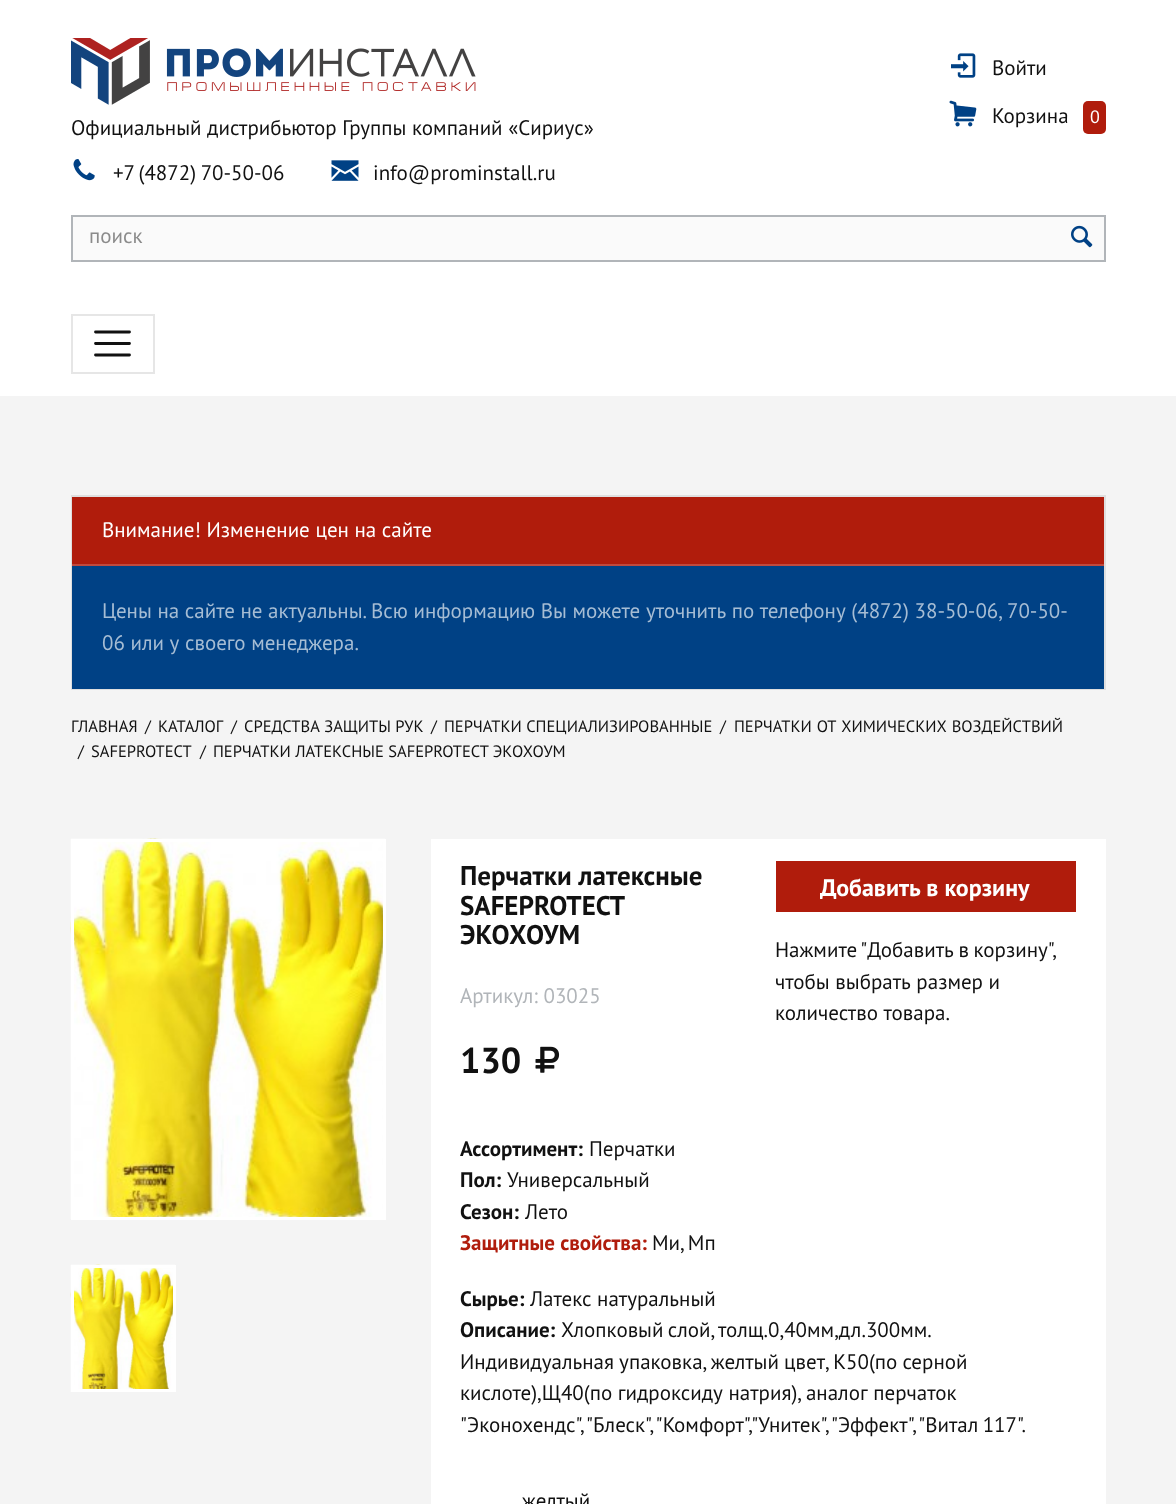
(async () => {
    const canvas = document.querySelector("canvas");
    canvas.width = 1176;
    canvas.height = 1504;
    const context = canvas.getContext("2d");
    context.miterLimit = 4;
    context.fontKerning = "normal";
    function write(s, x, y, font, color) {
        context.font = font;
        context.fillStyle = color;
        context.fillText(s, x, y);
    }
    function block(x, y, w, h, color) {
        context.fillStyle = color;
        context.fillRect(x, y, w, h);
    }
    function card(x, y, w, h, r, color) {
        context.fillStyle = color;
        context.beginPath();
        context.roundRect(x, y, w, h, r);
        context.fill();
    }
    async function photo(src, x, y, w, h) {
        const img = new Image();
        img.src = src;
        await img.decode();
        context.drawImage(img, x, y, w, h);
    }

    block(0, 0, 1176, 1504, "rgb(255, 255, 255)");
    await photo("media/1.png", 71, 38, 405, 67);
    write("Официальный дистрибьютор Группы компаний «Сириус»", 71, 135, "21px PT Sans", "rgb(17, 17, 17)");
    await photo("media/2.png", 951, 53, 25, 25);
    write("Войти", 992, 75, "21px PT Sans", "rgb(17, 17, 17)");
    await photo("media/3.png", 949, 100, 28, 27);
    write("Корзина", 992, 123, "21px PT Sans", "rgb(17, 17, 17)");
    card(1083, 101, 23, 33, 5, "rgb(176, 28, 12)");
    write("0", 1090, 123, "18px PT Sans", "rgb(255, 255, 255)");
    await photo("media/4.png", 73, 159, 22, 22);
    context.wordSpacing = "-1px";
    write("+7 (4872) 70-50-06", 113, 180, "21px PT Sans", "rgb(17, 17, 17)");
    await photo("media/5.png", 331, 160, 28, 21);
    context.wordSpacing = "0px";
    write("info@prominstall.ru", 373, 180, "21px PT Sans", "rgb(17, 17, 17)");
    block(73, 217, 1031, 43, "rgb(250, 250, 250)");
    block(71, 215, 1035, 2, "rgb(177, 181, 185)");
    block(71, 260, 988, 2, "rgb(177, 181, 185)");
    block(71, 215, 2, 46, "rgb(177, 181, 185)");
    write("поиск", 89, 243, "21px PT Sans", "rgb(139, 139, 139)");
    block(1104, 215, 2, 46, "rgb(177, 181, 185)");
    block(1059, 260, 47, 2, "rgb(177, 181, 185)");
    await photo("media/6.png", 1071, 225, 22, 23);
    context.strokeStyle = "rgb(230, 230, 230)";
    context.lineWidth = 2;
    context.strokeRect(72, 315, 82, 58);
    context.beginPath();
    context.moveTo(95.5, 332);
    context.lineTo(129.5, 332);
    context.moveTo(95.5, 343.5);
    context.lineTo(129.5, 343.5);
    context.moveTo(95.5, 355);
    context.lineTo(129.5, 355);
    context.strokeStyle = "rgb(17, 17, 17)";
    context.lineWidth = 2.8;
    context.lineCap = "round";
    context.stroke();
    block(0, 396, 1176, 1108, "rgb(244, 244, 244)");
    context.strokeStyle = "rgb(223, 223, 223)";
    context.lineWidth = 2;
    context.strokeRect(72, 496, 1033, 193);
    block(72, 497, 1032, 67, "rgb(176, 28, 12)");
    block(72, 564, 1032, 2, "rgb(192, 73, 61)");
    write("Внимание! Изменение цен на сайте", 102, 537, "21px PT Sans", "rgb(255, 255, 255)");
    block(72, 566, 1032, 123, "rgb(0, 65, 133)");
    write("Цены на сайте не актуальны. Всю информацию Вы можете уточнить по телефону (4872) 38-50-06, 70-50-", 102, 618, "21px PT Sans", "rgb(166, 189, 212)");
    write("06 или у своего менеджера.", 102, 650, "21px PT Sans", "rgb(166, 189, 212)");
    write("ГЛАВНАЯ", 71, 732, "16.5px PT Sans", "rgb(17, 17, 17)");
    write("/", 145, 732, "16.5px PT Sans", "rgb(17, 17, 17)");
    write("КАТАЛОГ", 158, 732, "16.5px PT Sans", "rgb(17, 17, 17)");
    write("/", 231, 732, "16.5px PT Sans", "rgb(17, 17, 17)");
    write("СРЕДСТВА ЗАЩИТЫ РУК", 244, 732, "16.5px PT Sans", "rgb(17, 17, 17)");
    write("/", 431, 732, "16.5px PT Sans", "rgb(17, 17, 17)");
    write("ПЕРЧАТКИ СПЕЦИАЛИЗИРОВАННЫЕ", 444, 732, "16.5px PT Sans", "rgb(17, 17, 17)");
    write("/", 720, 732, "16.5px PT Sans", "rgb(17, 17, 17)");
    context.wordSpacing = "0.5px";
    write("ПЕРЧАТКИ ОТ ХИМИЧЕСКИХ ВОЗДЕЙСТВИЙ", 734, 732, "16.5px PT Sans", "rgb(17, 17, 17)");
    context.wordSpacing = "0px";
    write("/", 78, 757, "16.5px PT Sans", "rgb(17, 17, 17)");
    write("SAFEPROTECT", 91, 757, "16.5px PT Sans", "rgb(17, 17, 17)");
    write("/", 200, 757, "16.5px PT Sans", "rgb(17, 17, 17)");
    write("ПЕРЧАТКИ ЛАТЕКСНЫЕ SAFEPROTECT ЭКОХОУМ", 213, 757, "16.5px PT Sans", "rgb(17, 17, 17)");
    await photo("media/7.png", 70, 838, 316, 382);
    context.strokeStyle = "rgb(255, 255, 255)";
    context.lineWidth = 3;
    context.strokeRect(72.5, 840.5, 312, 378);
    await photo("media/8.png", 70, 1264, 106, 128);
    context.strokeRect(72.5, 1266.5, 102, 124);
    block(431, 839, 675, 665, "rgb(255, 255, 255)");
    write("Перчатки латексные", 460, 885, "bold 27px PT Sans", "rgb(17, 17, 17)");
    write("SAFEPROTECT", 460, 915, "bold 27px PT Sans", "rgb(17, 17, 17)");
    write("ЭКОХОУМ", 460, 944, "bold 27px PT Sans", "rgb(17, 17, 17)");
    write("Артикул: 03025", 460, 1003, "21px PT Sans", "rgb(177, 181, 185)");
    write("130", 460, 1073, "bold 36px PT Sans", "rgb(17, 17, 17)");
    await photo("media/9.png", 535, 1046, 25, 27);
    block(776, 861, 300, 51, "rgb(176, 28, 12)");
    write("Добавить в корзину", 820, 896, "bold 24px PT Sans", "rgb(255, 255, 255)");
    context.wordSpacing = "-1px";
    write("Нажмите \"Добавить в корзину\",", 775, 957, "21px PT Sans", "rgb(17, 17, 17)");
    context.wordSpacing = "0px";
    write("чтобы выбрать размер и", 775, 989, "21px PT Sans", "rgb(17, 17, 17)");
    write("количество товара.", 775, 1020, "21px PT Sans", "rgb(17, 17, 17)");
    write("Ассортимент:", 460, 1156, "bold 21px PT Sans", "rgb(17, 17, 17)");
    write("Перчатки", 589, 1156, "21px PT Sans", "rgb(17, 17, 17)");
    write("Пол:", 460, 1187, "bold 21px PT Sans", "rgb(17, 17, 17)");
    write("Универсальный", 507, 1187, "21px PT Sans", "rgb(17, 17, 17)");
    write("Сезон:", 460, 1219, "bold 21px PT Sans", "rgb(17, 17, 17)");
    write("Лето", 525, 1219, "21px PT Sans", "rgb(17, 17, 17)");
    write("Защитные свойства:", 460, 1250, "bold 21px PT Sans", "rgb(176, 28, 12)");
    context.wordSpacing = "-1px";
    write("Ми, Мп", 652, 1250, "21px PT Sans", "rgb(17, 17, 17)");
    context.wordSpacing = "0px";
    write("Сырье:", 460, 1306, "bold 21px PT Sans", "rgb(17, 17, 17)");
    write("Латекс натуральный", 530, 1306, "21px PT Sans", "rgb(17, 17, 17)");
    write("Описание:", 460, 1337, "bold 21px PT Sans", "rgb(17, 17, 17)");
    context.wordSpacing = "-1.25px";
    write("Хлопковый слой, толщ.0,40мм,дл.300мм.", 561, 1337, "21px PT Sans", "rgb(17, 17, 17)");
    context.wordSpacing = "-0.5px";
    write("Индивидуальная упаковка, желтый цвет, К50(по серной", 460, 1369, "21px PT Sans", "rgb(17, 17, 17)");
    context.wordSpacing = "0px";
    write("кислоте),Щ40(по гидроксиду натрия), аналог перчаток", 460, 1400, "21px PT Sans", "rgb(17, 17, 17)");
    context.wordSpacing = "-1.25px";
    write("\"Эконохендс\", \"Блеск\", \"Комфорт\",\"Унитек\", \"Эффект\", \"Витал 117\".", 460, 1432, "21px PT Sans", "rgb(17, 17, 17)");
    context.wordSpacing = "0px";
    write("желтый", 522, 1508, "21px PT Sans", "rgb(17, 17, 17)");
})();
